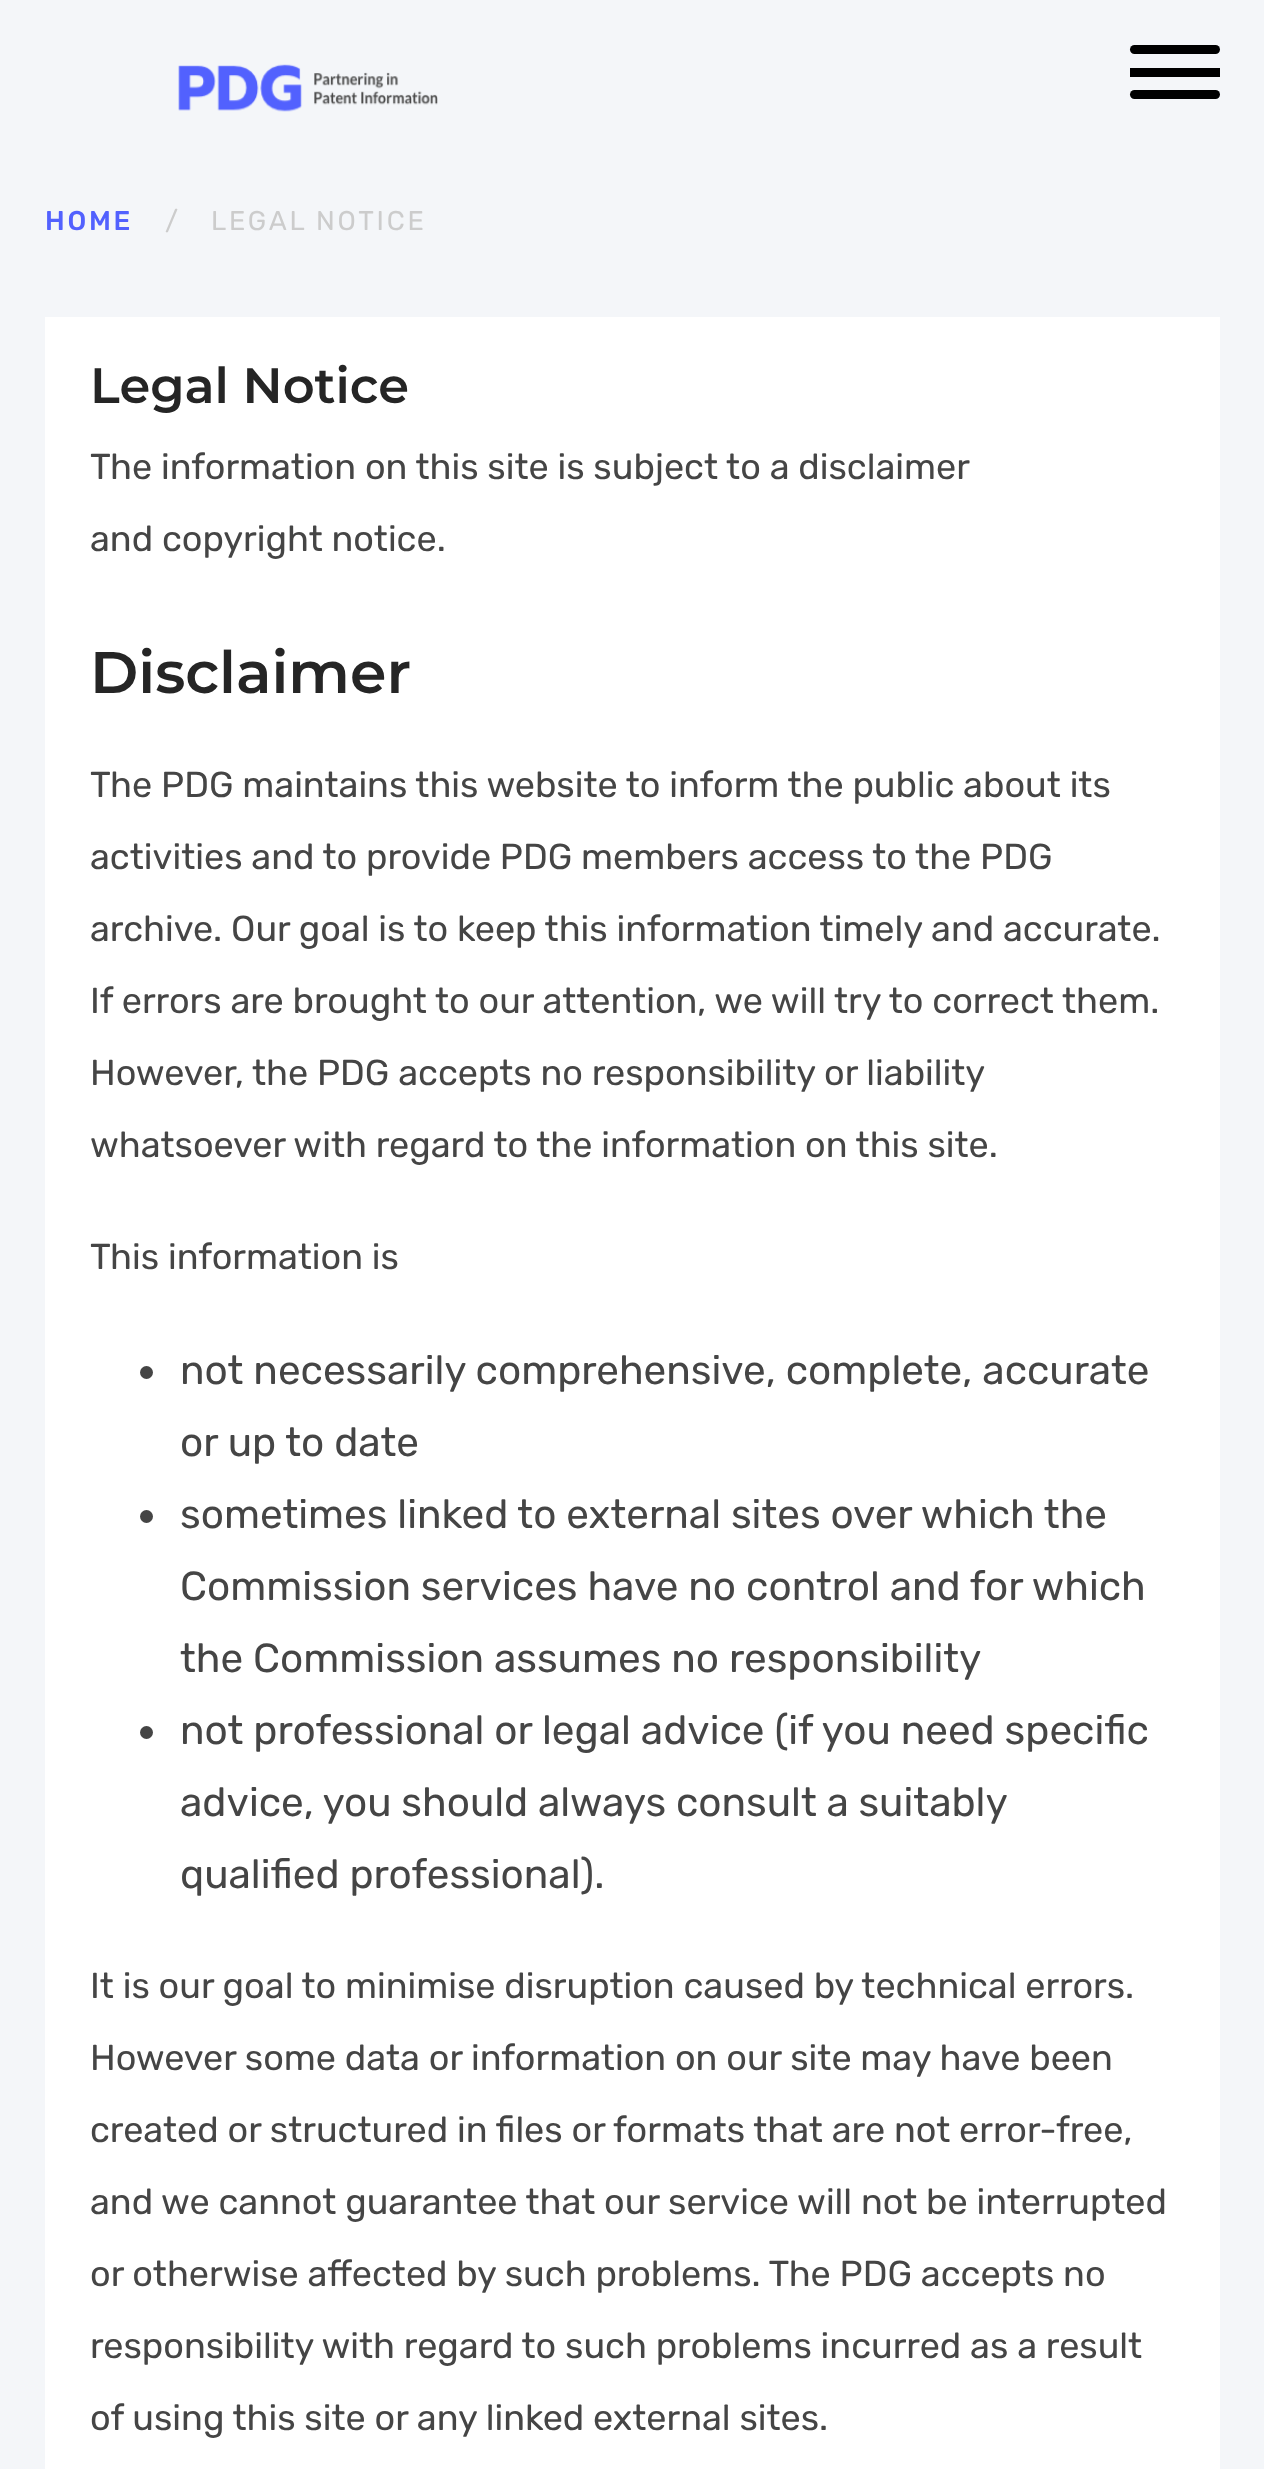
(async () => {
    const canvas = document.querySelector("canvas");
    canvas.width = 1264;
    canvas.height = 2469;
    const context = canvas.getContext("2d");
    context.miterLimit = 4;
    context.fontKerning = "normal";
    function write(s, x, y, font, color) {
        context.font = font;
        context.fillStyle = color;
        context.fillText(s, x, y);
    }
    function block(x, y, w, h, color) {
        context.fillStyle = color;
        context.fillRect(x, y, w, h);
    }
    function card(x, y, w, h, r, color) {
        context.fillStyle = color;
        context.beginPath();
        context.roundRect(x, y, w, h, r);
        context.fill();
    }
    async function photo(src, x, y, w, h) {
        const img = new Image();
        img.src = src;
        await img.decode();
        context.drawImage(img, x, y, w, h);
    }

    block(0, 0, 1264, 2469, "rgb(244, 246, 249)");
    await photo("media/1.png", 178, 64, 260, 48);
    block(1130, 68, 90, 9, "rgb(0, 0, 0)");
    card(1130, 45, 90, 9, 4.5, "rgb(0, 0, 0)");
    card(1130, 90, 90, 9, 4.5, "rgb(0, 0, 0)");
    context.letterSpacing = "2.75px";
    write("HOME", 45, 230, "500 27px Rubik", "rgb(82, 97, 254)");
    context.letterSpacing = "0px";
    write("/", 165, 230, "27px Rubik", "rgb(204, 204, 204)");
    context.letterSpacing = "2.75px";
    write("LEGAL NOTICE", 211, 230, "27px Rubik", "rgb(204, 204, 204)");
    block(45, 317, 1175, 2152, "rgb(255, 255, 255)");
    context.letterSpacing = "0px";
    write("Legal Notice", 90, 403, "600 49.5px Montserrat", "rgb(37, 37, 37)");
    write("The information on this site is subject to a disclaimer", 90, 479, "36px Rubik", "rgb(69, 69, 69)");
    write("and copyright notice.", 90, 551, "36px Rubik", "rgb(69, 69, 69)");
    write("Disclaimer", 90, 693, "600 58.5px Montserrat", "rgb(37, 37, 37)");
    write("The PDG maintains this website to inform the public about its", 90, 797, "36px Rubik", "rgb(69, 69, 69)");
    write("activities and to provide PDG members access to the PDG", 90, 869, "36px Rubik", "rgb(69, 69, 69)");
    write("archive. Our goal is to keep this information timely and accurate.", 90, 941, "36px Rubik", "rgb(69, 69, 69)");
    write("If errors are brought to our attention, we will try to correct them.", 90, 1013, "36px Rubik", "rgb(69, 69, 69)");
    write("However, the PDG accepts no responsibility or liability", 90, 1085, "36px Rubik", "rgb(69, 69, 69)");
    write("whatsoever with regard to the information on this site.", 90, 1157, "36px Rubik", "rgb(69, 69, 69)");
    write("This information is", 90, 1269, "36px Rubik", "rgb(69, 69, 69)");
    context.beginPath();
    context.arc(146.5, 1372.5, 6.5, 0, Math.PI * 2);
    context.fill();
    write("not necessarily comprehensive, complete, accurate", 180, 1384, "40.5px Rubik", "rgb(69, 69, 69)");
    write("or up to date", 180, 1456, "40.5px Rubik", "rgb(69, 69, 69)");
    context.beginPath();
    context.arc(146.5, 1516.5, 6.5, 0, Math.PI * 2);
    context.fill();
    write("sometimes linked to external sites over which the", 180, 1528, "40.5px Rubik", "rgb(69, 69, 69)");
    write("Commission services have no control and for which", 180, 1600, "40.5px Rubik", "rgb(69, 69, 69)");
    write("the Commission assumes no responsibility", 180, 1672, "40.5px Rubik", "rgb(69, 69, 69)");
    context.beginPath();
    context.arc(146.5, 1732.5, 6.5, 0, Math.PI * 2);
    context.fill();
    write("not professional or legal advice (if you need specific", 180, 1744, "40.5px Rubik", "rgb(69, 69, 69)");
    context.wordSpacing = "-0.25px";
    write("advice, you should always consult a suitably", 180, 1816, "40.5px Rubik", "rgb(69, 69, 69)");
    context.wordSpacing = "0px";
    write("qualified professional).", 180, 1888, "40.5px Rubik", "rgb(69, 69, 69)");
    write("It is our goal to minimise disruption caused by technical errors.", 90, 1998, "36px Rubik", "rgb(69, 69, 69)");
    write("However some data or information on our site may have been", 90, 2070, "36px Rubik", "rgb(69, 69, 69)");
    write("created or structured in files or formats that are not error-free,", 90, 2142, "36px Rubik", "rgb(69, 69, 69)");
    write("and we cannot guarantee that our service will not be interrupted", 90, 2214, "36px Rubik", "rgb(69, 69, 69)");
    write("or otherwise affected by such problems. The PDG accepts no", 90, 2286, "36px Rubik", "rgb(69, 69, 69)");
    write("responsibility with regard to such problems incurred as a result", 90, 2358, "36px Rubik", "rgb(69, 69, 69)");
    write("of using this site or any linked external sites.", 90, 2430, "36px Rubik", "rgb(69, 69, 69)");
})();
